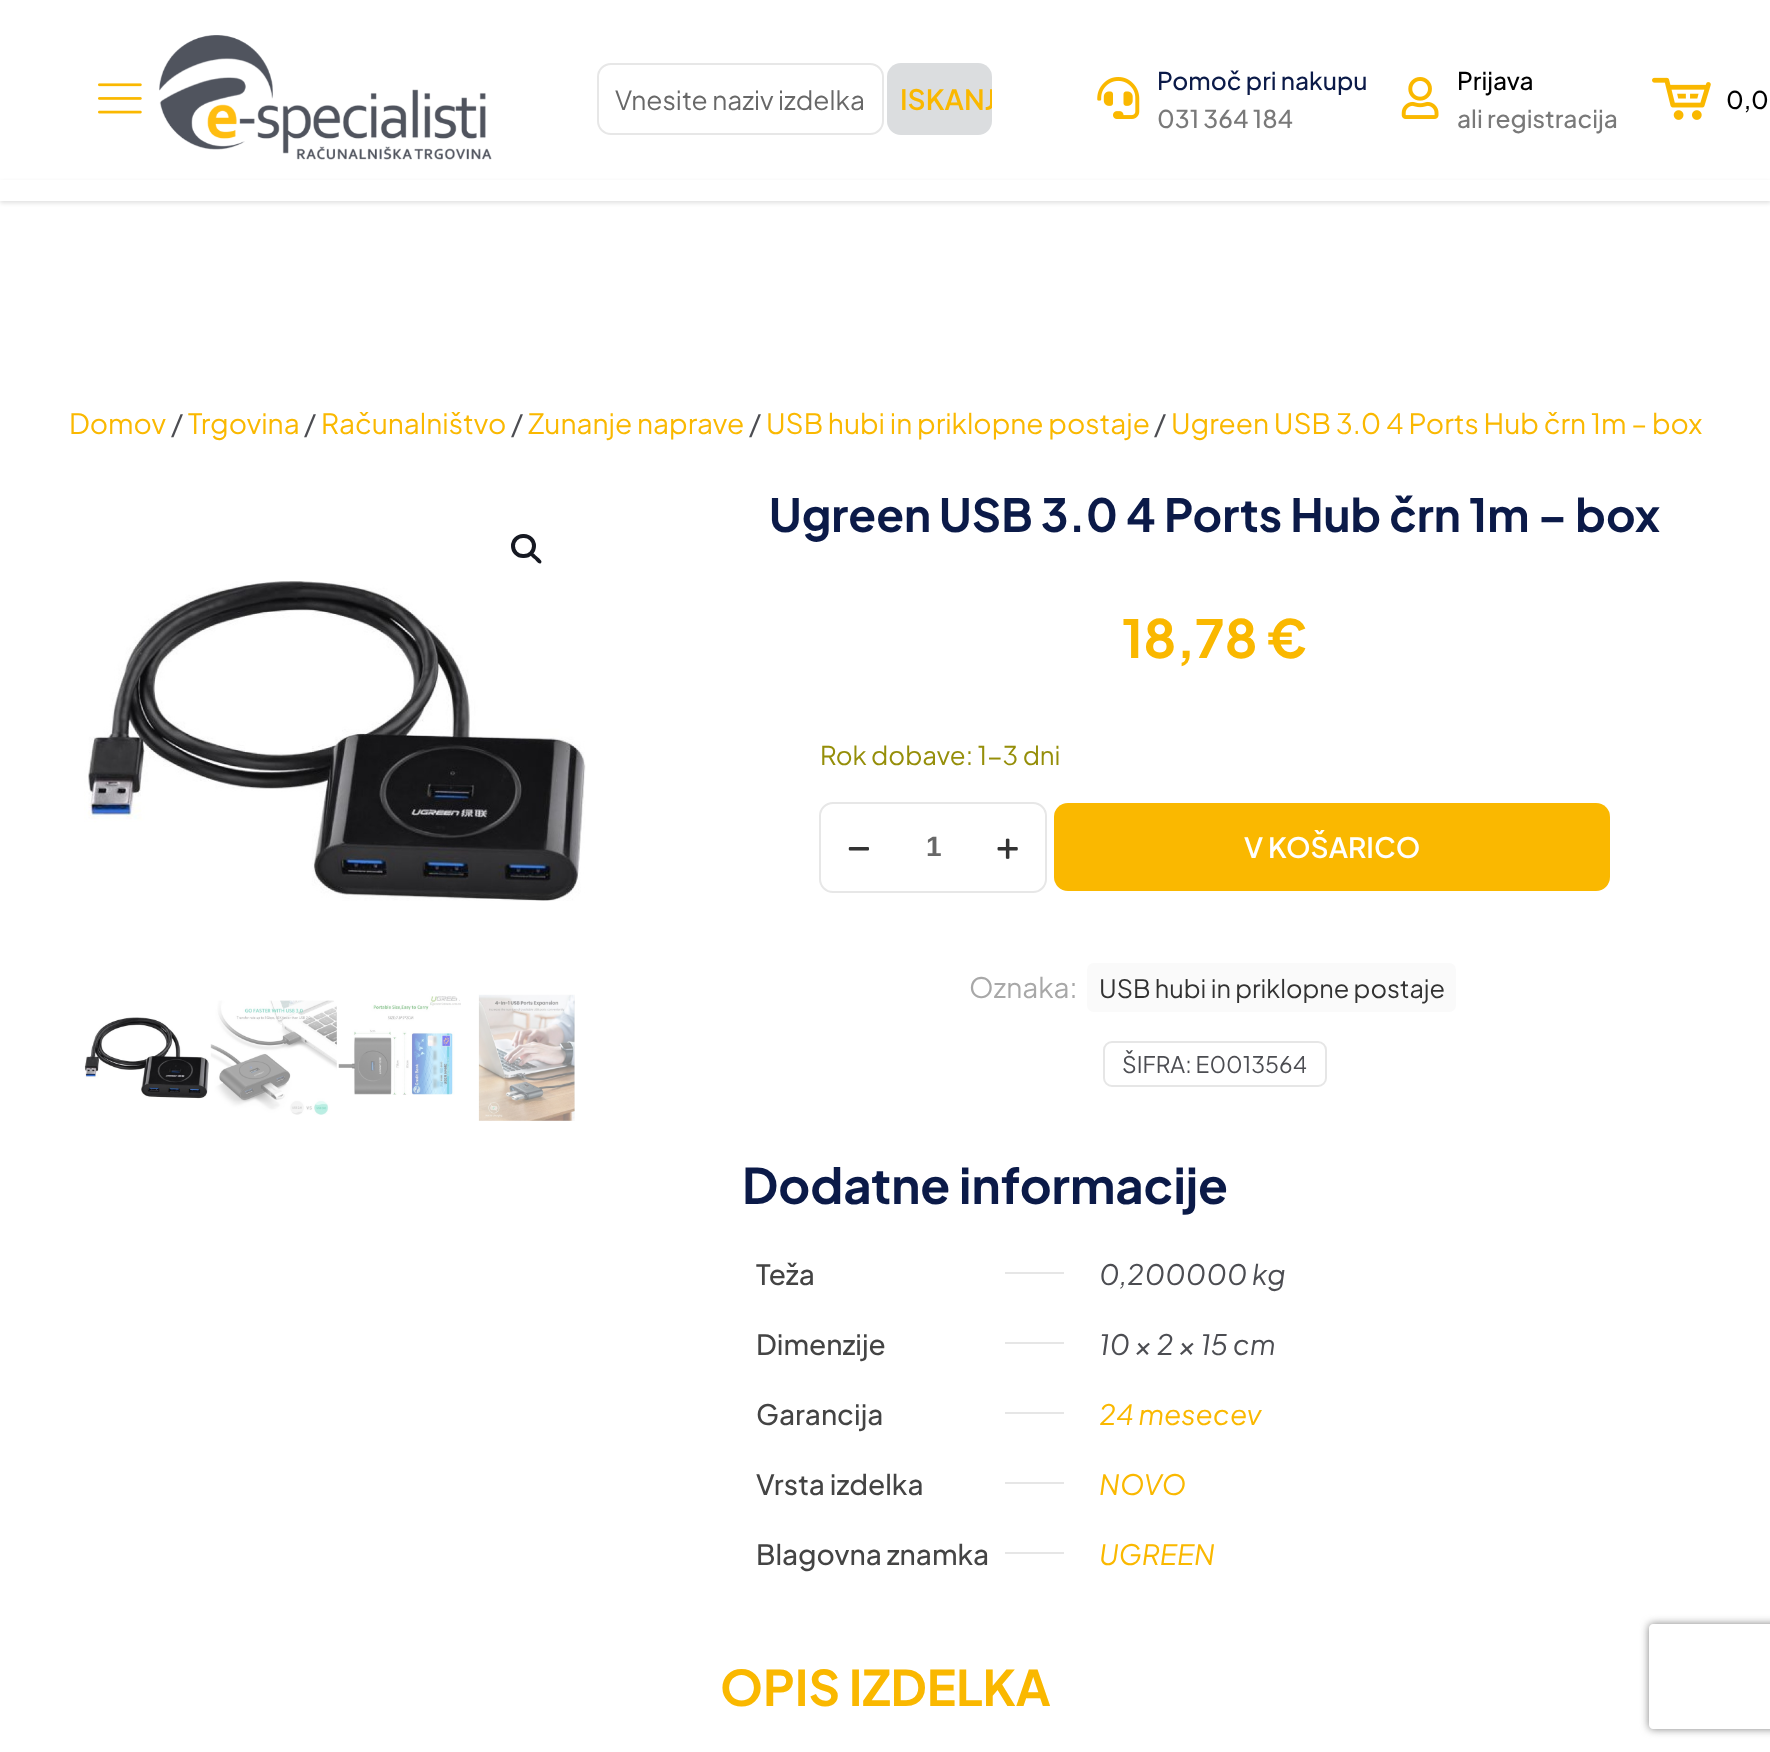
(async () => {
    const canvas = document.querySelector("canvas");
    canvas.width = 1770;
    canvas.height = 1752;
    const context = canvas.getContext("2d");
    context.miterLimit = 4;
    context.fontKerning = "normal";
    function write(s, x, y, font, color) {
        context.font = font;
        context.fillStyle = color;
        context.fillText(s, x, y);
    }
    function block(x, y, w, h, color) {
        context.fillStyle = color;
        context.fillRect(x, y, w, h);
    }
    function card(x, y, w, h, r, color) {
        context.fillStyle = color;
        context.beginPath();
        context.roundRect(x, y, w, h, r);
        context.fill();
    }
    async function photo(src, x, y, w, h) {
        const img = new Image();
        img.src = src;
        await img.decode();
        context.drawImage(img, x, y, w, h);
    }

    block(0, 0, 1770, 1752, "rgb(255, 255, 255)");
    await photo("media/1.png", 98, 83, 44, 31);
    await photo("media/2.png", 159, 35, 333, 125);
    context.beginPath();
    context.roundRect(598, 64, 285, 70, 13);
    context.strokeStyle = "rgb(231, 231, 231)";
    context.lineWidth = 2;
    context.stroke();
    write("Vnesite naziv izdelka", 615, 110, "26.25px Plus Jakarta Sans", "rgb(104, 104, 104)");
    card(887, 63, 105, 72, 14, "rgb(219, 221, 223)");
    context.save();
    context.beginPath();
    context.roundRect(887, 63, 105, 72, 14);
    context.clip();
    write("ISKANJ", 900, 110, "600 28px Plus Jakarta Sans", "rgb(250, 184, 0)");
    context.restore();
    await photo("media/3.png", 1097, 77, 43, 42);
    write("Pomoč pri nakupu", 1157, 90, "500 24.5px Plus Jakarta Sans", "rgb(11, 26, 72)");
    write("031 364 184", 1157, 128, "500 24.5px Plus Jakarta Sans", "rgb(121, 121, 121)");
    await photo("media/4.png", 1401, 77, 38, 42);
    write("Prijava", 1457, 90, "500 24.5px Plus Jakarta Sans", "rgb(0, 0, 0)");
    write("ali registracija", 1457, 128, "500 24.5px Plus Jakarta Sans", "rgb(121, 121, 121)");
    await photo("media/5.png", 1652, 77, 59, 43);
    write("0,0", 1726, 109, "500 24.5px Plus Jakarta Sans", "rgb(0, 0, 0)");
    context.fillStyle = "rgba(0, 0, 0, 0.12)";
    context.filter = "blur(2px)";
    context.beginPath();
    context.rect(0, 182, 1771, 21);
    context.fill();
    context.filter = "none";
    block(0, 180, 1770, 21, "rgb(255, 255, 255)");
    write("Domov", 69, 434, "28px Plus Jakarta Sans", "rgb(250, 184, 0)");
    write("/", 171, 434, "28px Plus Jakarta Sans", "rgb(76, 77, 82)");
    write("Trgovina", 188, 434, "28px Plus Jakarta Sans", "rgb(250, 184, 0)");
    write("/", 304, 434, "28px Plus Jakarta Sans", "rgb(76, 77, 82)");
    write("Računalništvo", 321, 434, "28px Plus Jakarta Sans", "rgb(250, 184, 0)");
    write("/", 511, 434, "28px Plus Jakarta Sans", "rgb(76, 77, 82)");
    write("Zunanje naprave", 528, 434, "28px Plus Jakarta Sans", "rgb(250, 184, 0)");
    write("/", 749, 434, "28px Plus Jakarta Sans", "rgb(76, 77, 82)");
    write("USB hubi in priklopne postaje", 766, 434, "28px Plus Jakarta Sans", "rgb(250, 184, 0)");
    write("/", 1154, 434, "28px Plus Jakarta Sans", "rgb(76, 77, 82)");
    write("Ugreen USB 3.0 4 Ports Hub črn 1m – box", 1171, 434, "28px Plus Jakarta Sans", "rgb(250, 184, 0)");
    context.beginPath();
    context.roundRect(513, 536, 21, 20, 10);
    context.strokeStyle = "rgb(22, 25, 34)";
    context.lineWidth = 4;
    context.stroke();
    context.fillStyle = "rgb(22, 25, 34)";
    context.beginPath();
    context.moveTo(531, 553.5);
    context.bezierCurveTo(533, 551.5, 536, 556, 537.5, 557);
    context.bezierCurveTo(538.5, 558, 543, 561, 541, 563);
    context.bezierCurveTo(539, 565, 536, 560.5, 535, 559.5);
    context.bezierCurveTo(534, 558.5, 529, 555.5, 531, 553.5);
    context.closePath();
    context.fill();
    await photo("media/6.png", 84, 581, 502, 320);
    await photo("media/7.png", 84, 1017, 125, 82);
    await photo("media/8.png", 210, 1000, 127, 115);
    await photo("media/9.png", 338, 996, 123, 99);
    await photo("media/10.png", 478, 994, 97, 127);
    write("Ugreen USB 3.0 4 Ports Hub črn 1m – box", 769, 532, "bold 45.5px Plus Jakarta Sans", "rgb(11, 26, 72)");
    write("18,78 €", 1122, 658, "bold 52.5px Plus Jakarta Sans", "rgb(250, 184, 0)");
    write("Rok dobave: 1-3 dni", 820, 765, "25.75px Plus Jakarta Sans", "rgb(149, 142, 9)");
    context.beginPath();
    context.roundRect(820, 803, 226, 89, 13);
    context.strokeStyle = "rgb(231, 231, 231)";
    context.lineWidth = 2;
    context.stroke();
    await photo("media/11.png", 848, 847, 21, 4);
    write("1", 926, 856, "bold 28px Liberation Sans", "rgb(104, 104, 104)");
    await photo("media/12.png", 997, 838, 21, 21);
    card(1054, 803, 556, 88, 14, "rgb(250, 184, 0)");
    write("V KOŠARICO", 1244, 858, "600 28px Plus Jakarta Sans", "rgb(255, 255, 255)");
    write("Oznaka:", 969, 998, "28px Plus Jakarta Sans", "rgb(168, 168, 168)");
    card(1087, 963, 369, 49, 7, "rgb(250, 250, 250)");
    write("USB hubi in priklopne postaje", 1099, 998, "25.25px Plus Jakarta Sans", "rgb(50, 50, 50)");
    context.beginPath();
    context.roundRect(1104, 1042, 222, 44, 8);
    context.strokeStyle = "rgb(230, 230, 230)";
    context.stroke();
    write("ŠIFRA: E0013564", 1122, 1073, "22.75px Plus Jakarta Sans", "rgb(76, 77, 82)");
    write("Dodatne informacije", 742, 1204, "bold 49px Plus Jakarta Sans", "rgb(11, 26, 72)");
    write("Teža", 756, 1285, "500 28px Plus Jakarta Sans", "rgb(68, 68, 68)");
    block(1005, 1272, 59, 2, "rgb(230, 230, 230)");
    write("0,200000 kg", 1099, 1285, "italic 28px Plus Jakarta Sans", "rgb(76, 77, 82)");
    write("Dimenzije", 756, 1355, "500 28px Plus Jakarta Sans", "rgb(68, 68, 68)");
    block(1005, 1342, 59, 2, "rgb(230, 230, 230)");
    write("10 × 2 × 15 cm", 1099, 1355, "italic 28px Plus Jakarta Sans", "rgb(76, 77, 82)");
    write("Garancija", 756, 1425, "500 28px Plus Jakarta Sans", "rgb(68, 68, 68)");
    block(1005, 1412, 59, 2, "rgb(230, 230, 230)");
    write("24 mesecev", 1099, 1425, "italic 28px Plus Jakarta Sans", "rgb(250, 184, 0)");
    write("Vrsta izdelka", 756, 1495, "500 28px Plus Jakarta Sans", "rgb(68, 68, 68)");
    block(1005, 1482, 59, 2, "rgb(230, 230, 230)");
    write("NOVO", 1099, 1495, "italic 28px Plus Jakarta Sans", "rgb(250, 184, 0)");
    write("Blagovna znamka", 756, 1565, "500 28px Plus Jakarta Sans", "rgb(68, 68, 68)");
    block(1005, 1552, 59, 2, "rgb(230, 230, 230)");
    write("UGREEN", 1099, 1565, "italic 28px Plus Jakarta Sans", "rgb(250, 184, 0)");
    write("OPIS IZDELKA", 720, 1706, "bold 49px Plus Jakarta Sans", "rgb(250, 184, 0)");
    context.save();
    context.beginPath();
    context.moveTo(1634, 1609);
    context.lineTo(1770, 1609);
    context.lineTo(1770, 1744);
    context.lineTo(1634, 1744);
    context.closePath();
    context.moveTo(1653, 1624);
    context.lineTo(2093, 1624);
    context.bezierCurveTo(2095, 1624, 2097, 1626, 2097, 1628);
    context.lineTo(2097, 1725);
    context.bezierCurveTo(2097, 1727, 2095, 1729, 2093, 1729);
    context.lineTo(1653, 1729);
    context.bezierCurveTo(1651, 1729, 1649, 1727, 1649, 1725);
    context.lineTo(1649, 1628);
    context.bezierCurveTo(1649, 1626, 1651, 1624, 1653, 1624);
    context.closePath();
    context.clip("evenodd");
    context.fillStyle = "rgb(128, 128, 128)";
    context.filter = "blur(4.5px)";
    context.beginPath();
    context.roundRect(1649, 1624, 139, 105, 4);
    context.fill();
    context.filter = "none";
    context.restore();
})();
